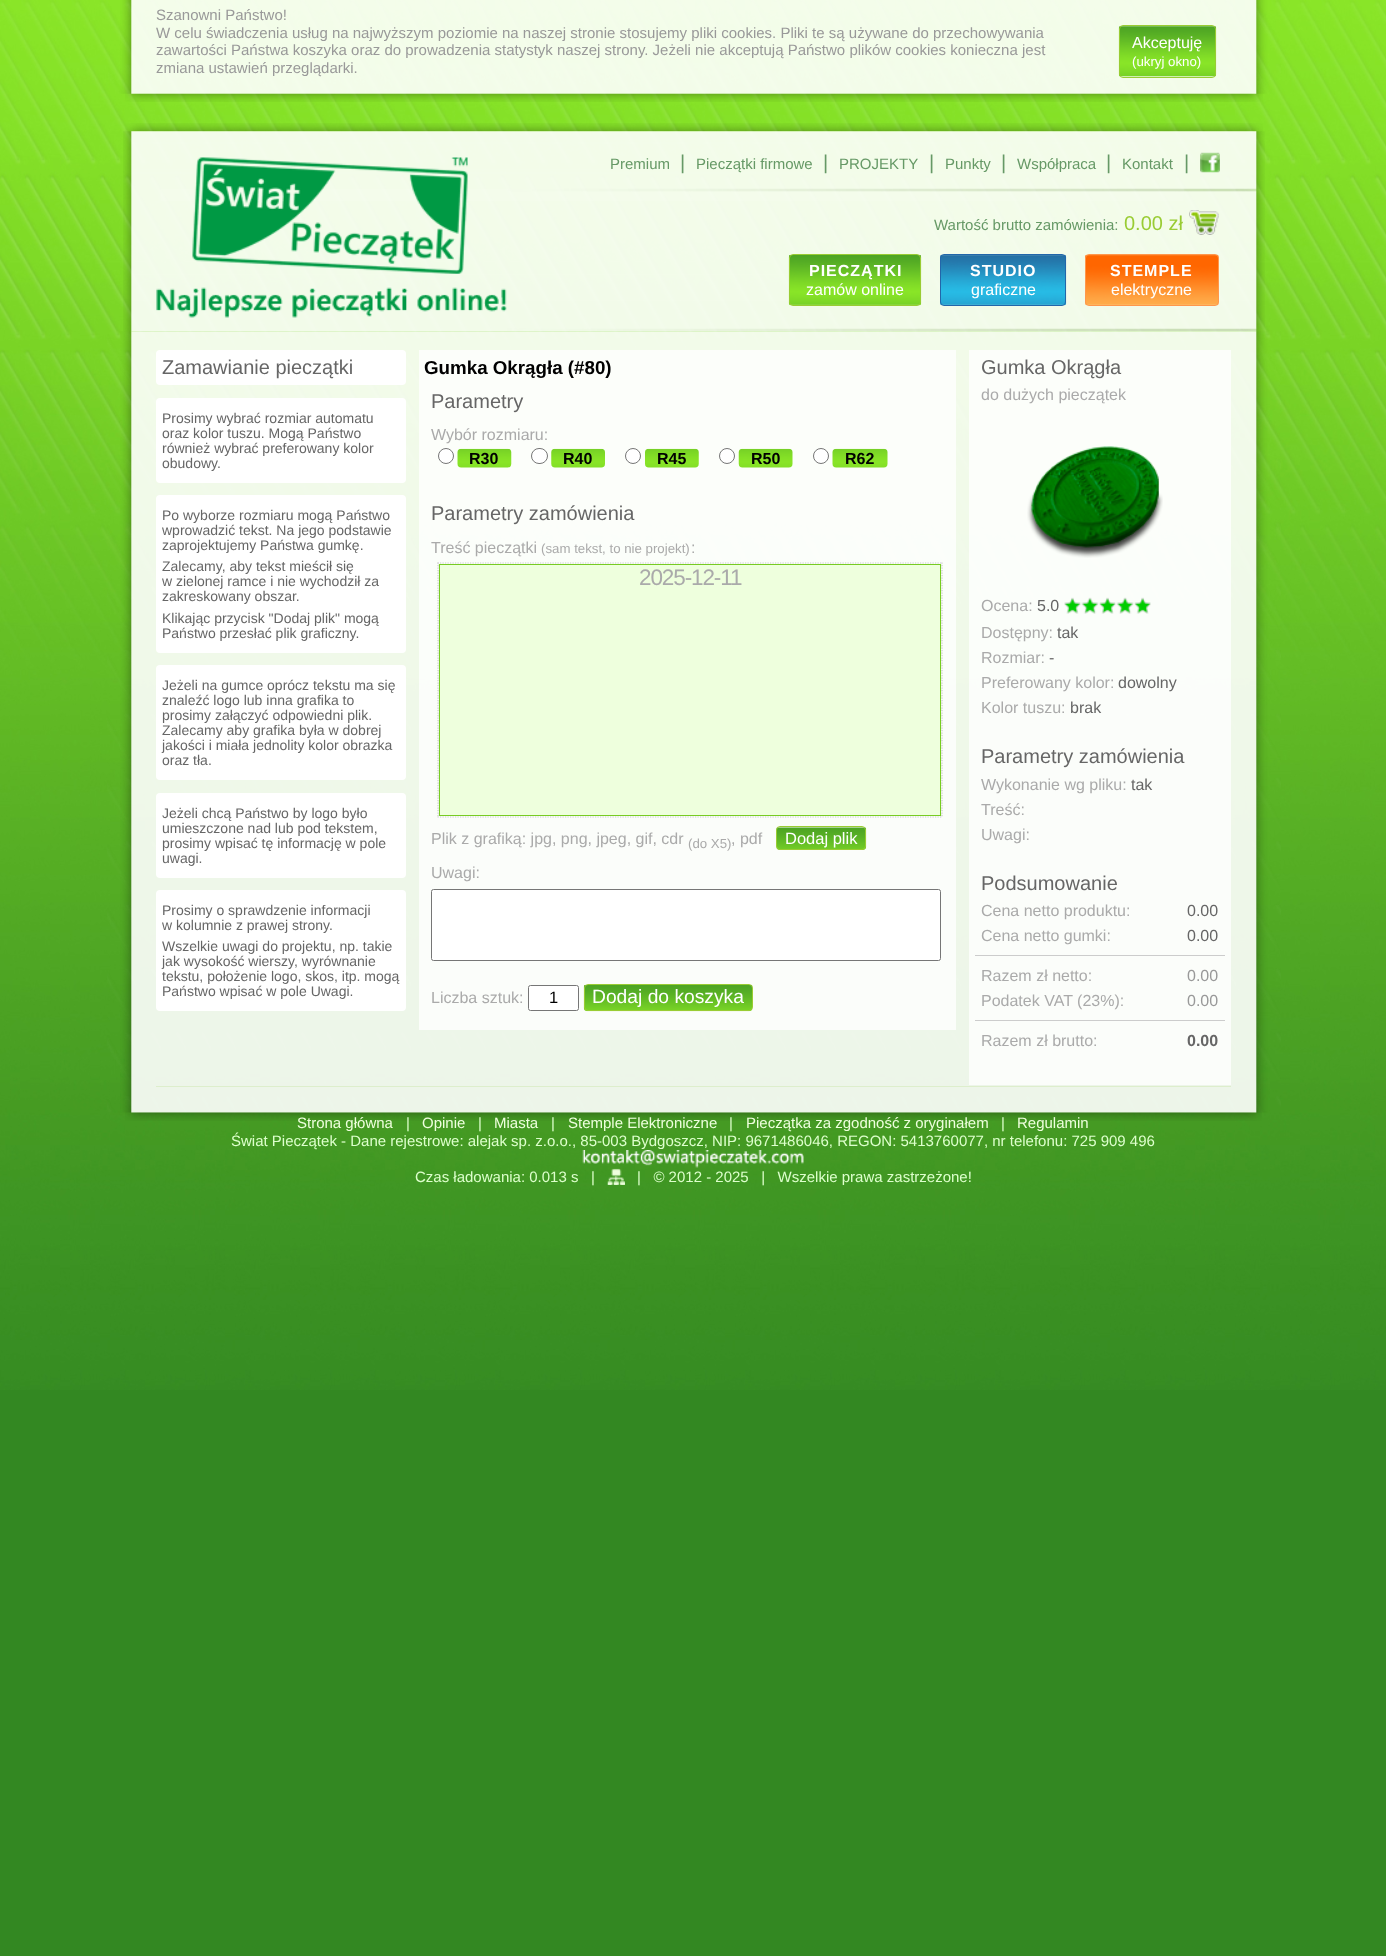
(async () => {
    const canvas = document.querySelector("canvas");
    canvas.width = 1386;
    canvas.height = 1956;
    const context = canvas.getContext("2d");
    context.miterLimit = 4;
    context.fontKerning = "normal";
    function write(s, x, y, font, color) {
        context.font = font;
        context.fillStyle = color;
        context.fillText(s, x, y);
    }
    function block(x, y, w, h, color) {
        context.fillStyle = color;
        context.fillRect(x, y, w, h);
    }
    function card(x, y, w, h, r, color) {
        context.fillStyle = color;
        context.beginPath();
        context.roundRect(x, y, w, h, r);
        context.fill();
    }
    async function photo(src, x, y, w, h) {
        const img = new Image();
        img.src = src;
        await img.decode();
        context.drawImage(img, x, y, w, h);
    }

    block(0, 0, 1386, 1956, "rgb(51, 136, 34)");
    await photo("media/1.png", 0, 0, 1386, 1390);
    await photo("media/2.png", 108, 0, 1173, 94);
    write("Szanowni Państwo!", 156, 20, "15px Liberation Sans", "rgb(153, 153, 153)");
    write("W celu świadczenia usług na najwyższym poziomie na naszej stronie stosujemy pliki cookies. Pliki te są używane do przechowywania", 156, 38, "15px Liberation Sans", "rgb(153, 153, 153)");
    write("zawartości Państwa koszyka oraz do prowadzenia statystyk naszej strony. Jeżeli nie akceptują Państwo plików cookies konieczna jest", 156, 55, "15px Liberation Sans", "rgb(153, 153, 153)");
    write("zmiana ustawień przeglądarki.", 156, 73, "15px Liberation Sans", "rgb(153, 153, 153)");
    await photo("media/3.png", 1118, 26, 99, 51);
    context.beginPath();
    context.roundRect(1119.5, 25.5, 96, 52, 3.5);
    context.strokeStyle = "rgb(153, 204, 51)";
    context.stroke();
    write("Akceptuję", 1132, 48, "16px Liberation Sans", "rgb(255, 255, 255)");
    write("(ukryj okno)", 1132, 66, "13.25px Liberation Sans", "rgb(255, 255, 255)");
    await photo("media/4.png", 125, 93, 1138, 9);
    await photo("media/5.png", 125, 123, 1138, 9);
    await photo("media/6.png", 123, 131, 1142, 201);
    await photo("media/7.png", 156, 157, 351, 161);
    write("Premium", 610, 169, "15px Liberation Sans", "rgb(102, 153, 102)");
    write("|", 680, 169, "20px Liberation Sans", "rgb(102, 153, 102)");
    write("Pieczątki firmowe", 696, 169, "15px Liberation Sans", "rgb(102, 153, 102)");
    write("|", 823, 169, "20px Liberation Sans", "rgb(102, 153, 102)");
    write("PROJEKTY", 839, 169, "15px Liberation Sans", "rgb(102, 153, 102)");
    write("|", 929, 169, "20px Liberation Sans", "rgb(102, 153, 102)");
    write("Punkty", 945, 169, "15px Liberation Sans", "rgb(102, 153, 102)");
    write("|", 1001, 169, "20px Liberation Sans", "rgb(102, 153, 102)");
    write("Współpraca", 1017, 169, "15px Liberation Sans", "rgb(102, 153, 102)");
    write("|", 1106, 169, "20px Liberation Sans", "rgb(102, 153, 102)");
    write("Kontakt", 1122, 169, "15px Liberation Sans", "rgb(102, 153, 102)");
    write("|", 1184, 169, "20px Liberation Sans", "rgb(102, 153, 102)");
    await photo("media/8.png", 1200, 152, 20, 21);
    write("Wartość brutto zamówienia:", 934, 230, "15px Liberation Sans", "rgb(102, 153, 102)");
    write("0.00 zł", 1124, 230, "20px Liberation Sans", "rgb(153, 204, 51)");
    await photo("media/9.png", 1189, 210, 30, 25);
    await photo("media/10.png", 788, 255, 134, 51);
    context.beginPath();
    context.roundRect(789.5, 254.5, 131, 51, 3.5);
    context.stroke();
    context.letterSpacing = "1px";
    write("PIECZĄTKI", 809, 276, "bold 16px Liberation Sans", "rgb(255, 255, 255)");
    context.letterSpacing = "0px";
    write("zamów online", 806, 295, "16px Liberation Sans", "rgb(255, 255, 255)");
    await photo("media/11.png", 940, 254, 127, 52);
    context.beginPath();
    context.roundRect(940.5, 254.5, 125, 51, 3.5);
    context.strokeStyle = "rgb(34, 102, 170)";
    context.stroke();
    context.letterSpacing = "1px";
    write("STUDIO", 970, 276, "bold 16px Liberation Sans", "rgb(255, 255, 255)");
    context.letterSpacing = "0px";
    write("graficzne", 971, 295, "16px Liberation Sans", "rgb(255, 255, 255)");
    await photo("media/12.png", 1085, 254, 134, 52);
    context.beginPath();
    context.roundRect(1085.5, 254.5, 133, 51, 3.5);
    context.strokeStyle = "rgb(255, 151, 76)";
    context.stroke();
    context.letterSpacing = "1px";
    write("STEMPLE", 1110, 276, "bold 16px Liberation Sans", "rgb(255, 255, 255)");
    context.letterSpacing = "0px";
    write("elektryczne", 1111, 295, "16px Liberation Sans", "rgb(255, 255, 255)");
    await photo("media/13.png", 107, 331, 1174, 782);
    card(156, 350, 250, 35, 4, "rgb(255, 255, 255)");
    write("Zamawianie pieczątki", 162, 374, "20px Liberation Sans", "rgb(102, 102, 102)");
    card(156, 398, 250, 85, 4, "rgb(255, 255, 255)");
    write("Prosimy wybrać rozmiar automatu", 162, 423, "14px Liberation Sans", "rgb(102, 102, 102)");
    write("oraz kolor tuszu. Mogą Państwo", 162, 438, "14px Liberation Sans", "rgb(102, 102, 102)");
    write("również wybrać preferowany kolor", 162, 453, "14px Liberation Sans", "rgb(102, 102, 102)");
    write("obudowy.", 162, 468, "14px Liberation Sans", "rgb(102, 102, 102)");
    card(156, 495, 250, 158, 4, "rgb(255, 255, 255)");
    write("Po wyborze rozmiaru mogą Państwo", 162, 520, "14px Liberation Sans", "rgb(102, 102, 102)");
    write("wprowadzić tekst. Na jego podstawie", 162, 535, "14px Liberation Sans", "rgb(102, 102, 102)");
    write("zaprojektujemy Państwa gumkę.", 162, 550, "14px Liberation Sans", "rgb(102, 102, 102)");
    write("Zalecamy, aby tekst mieścił się", 162, 571, "14px Liberation Sans", "rgb(102, 102, 102)");
    write("w zielonej ramce i nie wychodził za", 162, 586, "14px Liberation Sans", "rgb(102, 102, 102)");
    write("zakreskowany obszar.", 162, 601, "14px Liberation Sans", "rgb(102, 102, 102)");
    write("Klikając przycisk \"Dodaj plik\" mogą", 162, 623, "14px Liberation Sans", "rgb(102, 102, 102)");
    write("Państwo przesłać plik graficzny.", 162, 638, "14px Liberation Sans", "rgb(102, 102, 102)");
    card(156, 665, 250, 115, 4, "rgb(255, 255, 255)");
    write("Jeżeli na gumce oprócz tekstu ma się", 162, 690, "14px Liberation Sans", "rgb(102, 102, 102)");
    write("znaleźć logo lub inna grafika to", 162, 705, "14px Liberation Sans", "rgb(102, 102, 102)");
    write("prosimy załączyć odpowiedni plik.", 162, 720, "14px Liberation Sans", "rgb(102, 102, 102)");
    write("Zalecamy aby grafika była w dobrej", 162, 735, "14px Liberation Sans", "rgb(102, 102, 102)");
    write("jakości i miała jednolity kolor obrazka", 162, 750, "14px Liberation Sans", "rgb(102, 102, 102)");
    write("oraz tła.", 162, 765, "14px Liberation Sans", "rgb(102, 102, 102)");
    card(156, 793, 250, 85, 4, "rgb(255, 255, 255)");
    write("Jeżeli chcą Państwo by logo było", 162, 818, "14px Liberation Sans", "rgb(102, 102, 102)");
    write("umieszczone nad lub pod tekstem,", 162, 833, "14px Liberation Sans", "rgb(102, 102, 102)");
    write("prosimy wpisać tę informację w pole", 162, 848, "14px Liberation Sans", "rgb(102, 102, 102)");
    write("uwagi.", 162, 863, "14px Liberation Sans", "rgb(102, 102, 102)");
    card(156, 890, 250, 121, 4, "rgb(255, 255, 255)");
    write("Prosimy o sprawdzenie informacji", 162, 915, "14px Liberation Sans", "rgb(102, 102, 102)");
    write("w kolumnie z prawej strony.", 162, 930, "14px Liberation Sans", "rgb(102, 102, 102)");
    write("Wszelkie uwagi do projektu, np. takie", 162, 951, "14px Liberation Sans", "rgb(102, 102, 102)");
    write("jak wysokość wierszy, wyrównanie", 162, 966, "14px Liberation Sans", "rgb(102, 102, 102)");
    write("tekstu, położenie logo, skos, itp. mogą", 162, 981, "14px Liberation Sans", "rgb(102, 102, 102)");
    write("Państwo wpisać w pole Uwagi.", 162, 996, "14px Liberation Sans", "rgb(102, 102, 102)");
    block(419, 350, 537, 680, "rgba(255, 255, 255, 0.75)");
    write("Gumka Okrągła (#80)", 424, 374, "bold 18.75px Liberation Sans", "rgb(0, 0, 0)");
    write("Parametry", 431, 408, "20px Liberation Sans", "rgb(102, 102, 102)");
    write("Wybór rozmiaru:", 431, 440, "16px Liberation Sans", "rgb(170, 170, 170)");
    context.fillStyle = "rgb(255, 255, 255)";
    context.beginPath();
    context.arc(446, 456, 7.5, 0, Math.PI * 2);
    context.fill();
    context.strokeStyle = "rgb(118, 118, 118)";
    context.stroke();
    await photo("media/14.png", 457, 448, 55, 20);
    write("R30", 469, 464, "bold 16px Liberation Sans", "rgb(0, 0, 0)");
    context.fillStyle = "rgb(255, 255, 255)";
    context.beginPath();
    context.roundRect(531.5, 448.5, 16, 15, 7.5);
    context.fill();
    context.stroke();
    await photo("media/15.png", 551, 448, 54, 20);
    write("R40", 563, 464, "bold 16px Liberation Sans", "rgb(0, 0, 0)");
    context.fillStyle = "rgb(255, 255, 255)";
    context.beginPath();
    context.arc(633, 456, 7.5, 0, Math.PI * 2);
    context.fill();
    context.stroke();
    await photo("media/16.png", 645, 448, 54, 20);
    write("R45", 657, 464, "bold 16px Liberation Sans", "rgb(0, 0, 0)");
    context.fillStyle = "rgb(255, 255, 255)";
    context.beginPath();
    context.arc(727, 456, 7.5, 0, Math.PI * 2);
    context.fill();
    context.stroke();
    await photo("media/17.png", 738, 448, 55, 20);
    write("R50", 751, 464, "bold 16px Liberation Sans", "rgb(0, 0, 0)");
    context.fillStyle = "rgb(255, 255, 255)";
    context.beginPath();
    context.arc(821, 456, 7.5, 0, Math.PI * 2);
    context.fill();
    context.stroke();
    await photo("media/18.png", 832, 448, 56, 20);
    write("R62", 845, 464, "bold 16px Liberation Sans", "rgb(0, 0, 0)");
    write("Parametry zamówienia", 431, 520, "20px Liberation Sans", "rgb(102, 102, 102)");
    write("Treść pieczątki", 431, 553, "16px Liberation Sans", "rgb(170, 170, 170)");
    write("(sam tekst, to nie projekt)", 541, 553, "13.25px Liberation Sans", "rgb(170, 170, 170)");
    write(":", 691, 553, "16px Liberation Sans", "rgb(170, 170, 170)");
    context.beginPath();
    context.moveTo(439, 564.5);
    context.lineTo(941, 564.5);
    context.strokeStyle = "rgb(119, 204, 34)";
    context.lineWidth = 1.2;
    context.setLineDash([3.75, 2.49]);
    context.stroke();
    context.beginPath();
    context.moveTo(437.5, 563);
    context.lineTo(942.5, 563);
    context.strokeStyle = "rgb(204, 204, 204)";
    context.setLineDash([1.25, 1.25]);
    context.stroke();
    context.beginPath();
    context.moveTo(940.5, 564);
    context.lineTo(940.5, 816);
    context.strokeStyle = "rgb(119, 204, 34)";
    context.setLineDash([3.75, 2.48]);
    context.stroke();
    context.beginPath();
    context.moveTo(942, 562.5);
    context.lineTo(942, 817.5);
    context.strokeStyle = "rgb(204, 204, 204)";
    context.setLineDash([1.25, 1.25]);
    context.stroke();
    context.beginPath();
    context.moveTo(439, 815.5);
    context.lineTo(941, 815.5);
    context.strokeStyle = "rgb(119, 204, 34)";
    context.setLineDash([3.75, 2.49]);
    context.stroke();
    context.beginPath();
    context.moveTo(437.5, 817);
    context.lineTo(942.5, 817);
    context.strokeStyle = "rgb(204, 204, 204)";
    context.setLineDash([1.25, 1.25]);
    context.stroke();
    context.beginPath();
    context.moveTo(439.5, 564);
    context.lineTo(439.5, 816);
    context.strokeStyle = "rgb(119, 204, 34)";
    context.setLineDash([3.75, 2.48]);
    context.stroke();
    context.beginPath();
    context.moveTo(438, 562.5);
    context.lineTo(438, 817.5);
    context.strokeStyle = "rgb(204, 204, 204)";
    context.setLineDash([1.25, 1.25]);
    context.stroke();
    block(440, 565, 500, 250, "rgb(238, 255, 221)");
    context.strokeStyle = "rgb(119, 204, 34)";
    context.lineWidth = 1;
    context.setLineDash([]);
    context.strokeRect(439.5, 564.5, 501, 251);
    context.letterSpacing = "-1.1px";
    write("2025-12-11", 639, 585, "22.5px Liberation Sans", "rgb(170, 170, 170)");
    context.letterSpacing = "0px";
    write("Plik z grafiką: jpg, png, jpeg, gif, cdr", 431, 844, "16px Liberation Sans", "rgb(170, 170, 170)");
    write("(do X5)", 688, 848, "13.25px Liberation Sans", "rgb(170, 170, 170)");
    write(", pdf", 731, 844, "16px Liberation Sans", "rgb(170, 170, 170)");
    await photo("media/19.png", 776, 827, 91, 23);
    context.beginPath();
    context.roundRect(776.5, 826.5, 89, 23, 3.5);
    context.strokeStyle = "rgb(153, 204, 51)";
    context.stroke();
    write("Dodaj plik", 785, 844, "16.5px Liberation Sans", "rgb(255, 255, 255)");
    write("Uwagi:", 431, 878, "16px Liberation Sans", "rgb(170, 170, 170)");
    context.fillStyle = "rgb(255, 255, 255)";
    context.beginPath();
    context.roundRect(431.5, 889.5, 509, 71, 2);
    context.fill();
    context.strokeStyle = "rgb(118, 118, 118)";
    context.stroke();
    write("Liczba sztuk:", 431, 1003, "16px Liberation Sans", "rgb(170, 170, 170)");
    context.fillStyle = "rgb(255, 255, 255)";
    context.beginPath();
    context.roundRect(528.5, 985.5, 50, 25, 2);
    context.fill();
    context.stroke();
    write("1", 549, 1003, "16.5px Liberation Sans", "rgb(0, 0, 0)");
    await photo("media/20.png", 583, 985, 170, 27);
    context.beginPath();
    context.roundRect(584.5, 984.5, 168, 26, 3.5);
    context.strokeStyle = "rgb(153, 204, 51)";
    context.stroke();
    write("Dodaj do koszyka", 592, 1003, "19.25px Liberation Sans", "rgb(255, 255, 255)");
    block(969, 350, 262, 735, "rgba(255, 255, 255, 0.75)");
    write("Gumka Okrągła", 981, 374, "20px Liberation Sans", "rgb(102, 102, 102)");
    write("do dużych pieczątek", 981, 400, "16px Liberation Sans", "rgb(170, 170, 170)");
    await photo("media/21.png", 1027, 446, 136, 112);
    write("Ocena:", 981, 611, "16px Liberation Sans", "rgb(170, 170, 170)");
    write("5.0", 1037, 611, "16px Liberation Sans", "rgb(102, 102, 102)");
    await photo("media/22.png", 1064, 597, 87, 17);
    write("Dostępny:", 981, 638, "16px Liberation Sans", "rgb(170, 170, 170)");
    write("tak", 1057, 638, "16px Liberation Sans", "rgb(102, 102, 102)");
    write("Rozmiar:", 981, 663, "16px Liberation Sans", "rgb(170, 170, 170)");
    write("-", 1049, 663, "16px Liberation Sans", "rgb(102, 102, 102)");
    write("Preferowany kolor:", 981, 688, "16px Liberation Sans", "rgb(170, 170, 170)");
    write("dowolny", 1118, 688, "16px Liberation Sans", "rgb(102, 102, 102)");
    write("Kolor tuszu:", 981, 713, "16px Liberation Sans", "rgb(170, 170, 170)");
    write("brak", 1070, 713, "16px Liberation Sans", "rgb(102, 102, 102)");
    write("Parametry zamówienia", 981, 763, "20px Liberation Sans", "rgb(102, 102, 102)");
    write("Wykonanie wg pliku:", 981, 790, "16px Liberation Sans", "rgb(170, 170, 170)");
    write("tak", 1131, 790, "16px Liberation Sans", "rgb(102, 102, 102)");
    write("Treść:", 981, 815, "16px Liberation Sans", "rgb(170, 170, 170)");
    write("Uwagi:", 981, 840, "16px Liberation Sans", "rgb(170, 170, 170)");
    write("Podsumowanie", 981, 890, "20px Liberation Sans", "rgb(102, 102, 102)");
    write("Cena netto produktu:", 981, 916, "16px Liberation Sans", "rgb(170, 170, 170)");
    write("0.00", 1187, 916, "16px Liberation Sans", "rgb(102, 102, 102)");
    write("Cena netto gumki:", 981, 941, "16px Liberation Sans", "rgb(170, 170, 170)");
    write("0.00", 1187, 941, "16px Liberation Sans", "rgb(102, 102, 102)");
    block(975, 955, 250, 1, "rgb(204, 204, 204)");
    write("Razem zł netto:", 981, 981, "16px Liberation Sans", "rgb(170, 170, 170)");
    write("0.00", 1187, 981, "16px Liberation Sans", "rgb(153, 153, 153)");
    write("Podatek VAT (23%):", 981, 1006, "16px Liberation Sans", "rgb(170, 170, 170)");
    write("0.00", 1187, 1006, "16px Liberation Sans", "rgb(153, 153, 153)");
    block(975, 1020, 250, 1, "rgb(204, 204, 204)");
    write("Razem zł brutto:", 981, 1046, "16px Liberation Sans", "rgb(170, 170, 170)");
    write("0.00", 1187, 1046, "bold 16px Liberation Sans", "rgb(102, 102, 102)");
    block(156, 1086, 1075, 1, "rgb(221, 238, 204)");
    await photo("media/23.png", 125, 1112, 1137, 9);
    write("Strona główna", 297, 1128, "15px Liberation Sans", "rgb(238, 255, 221)");
    write("|", 406, 1128, "15px Liberation Sans", "rgb(221, 255, 204)");
    write("Opinie", 422, 1128, "15px Liberation Sans", "rgb(238, 255, 221)");
    write("|", 478, 1128, "15px Liberation Sans", "rgb(221, 255, 204)");
    write("Miasta", 494, 1128, "15px Liberation Sans", "rgb(238, 255, 221)");
    write("|", 551, 1128, "15px Liberation Sans", "rgb(221, 255, 204)");
    write("Stemple Elektroniczne", 568, 1128, "15px Liberation Sans", "rgb(238, 255, 221)");
    write("|", 729, 1128, "15px Liberation Sans", "rgb(221, 255, 204)");
    write("Pieczątka za zgodność z oryginałem", 746, 1128, "15px Liberation Sans", "rgb(238, 255, 221)");
    write("|", 1001, 1128, "15px Liberation Sans", "rgb(221, 255, 204)");
    write("Regulamin", 1017, 1128, "15px Liberation Sans", "rgb(238, 255, 221)");
    write("Świat Pieczątek - Dane rejestrowe: alejak sp. z.o.o., 85-003 Bydgoszcz, NIP: 9671486046, REGON: 5413760077, nr telefonu: 725 909 496", 231, 1146, "15px Liberation Sans", "rgb(221, 255, 204)");
    await photo("media/24.png", 582, 1150, 222, 18);
    write("Czas ładowania: 0.013 s   |", 415, 1182, "15px Liberation Sans", "rgb(221, 255, 204)");
    await photo("media/25.png", 607, 1168, 18, 17);
    write("|   © 2012 - 2025   |   Wszelkie prawa zastrzeżone!", 637, 1182, "15px Liberation Sans", "rgb(221, 255, 204)");
})();
